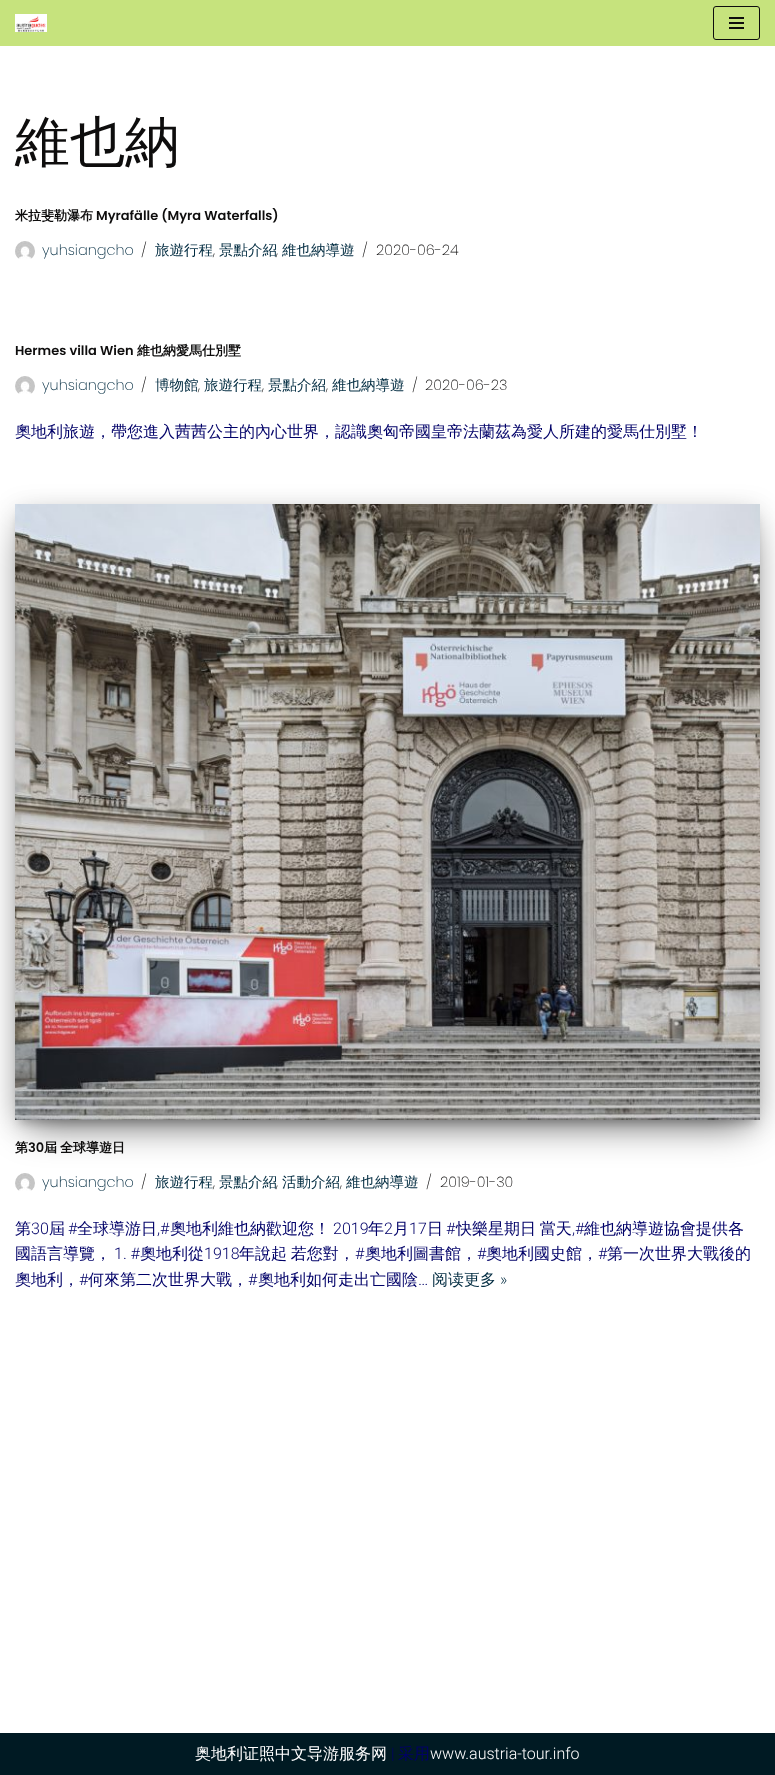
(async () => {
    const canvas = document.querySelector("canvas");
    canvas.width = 775;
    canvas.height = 1775;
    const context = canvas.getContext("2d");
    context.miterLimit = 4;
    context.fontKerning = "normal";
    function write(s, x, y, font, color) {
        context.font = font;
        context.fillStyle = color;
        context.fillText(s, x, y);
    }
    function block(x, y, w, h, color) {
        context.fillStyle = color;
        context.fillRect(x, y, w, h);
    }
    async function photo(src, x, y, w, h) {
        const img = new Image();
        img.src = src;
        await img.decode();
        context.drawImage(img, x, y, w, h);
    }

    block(0, 0, 775, 1775, "rgb(255, 255, 255)");
    block(0, 0, 775, 46, "rgb(198, 227, 125)");
    await photo("media/1.png", 15, 14, 32, 18);
    context.beginPath();
    context.roundRect(713.5, 6.5, 46, 33, 2.5);
    context.strokeStyle = "rgb(14, 13, 13)";
    context.stroke();
    block(729, 17, 15, 2, "rgb(14, 13, 13)");
    block(729, 22, 15, 2, "rgb(14, 13, 13)");
    block(729, 27, 15, 2, "rgb(14, 13, 13)");
    write("維也納", 15, 161, "500 55px WenQuanYi Zen Hei", "rgb(14, 13, 13)");
    write("米拉斐勒瀑布", 15, 220, "bold 13px WenQuanYi Zen Hei", "rgb(14, 13, 13)");
    write("Myrafälle (Myra Waterfalls)", 96, 220, "600 13px Poppins", "rgb(14, 13, 13)");
    await photo("media/2.png", 15, 241, 20, 18);
    write("yuhsiangcho", 42, 255, "200 14.5px Poppins", "rgb(0, 43, 64)");
    write("/", 141, 255, "200 14.5px Poppins", "rgb(14, 13, 13)");
    write("旅遊行程", 155, 255, "500 14.5px WenQuanYi Zen Hei", "rgb(0, 43, 64)");
    write(",", 213, 255, "200 14.5px Poppins", "rgb(14, 13, 13)");
    write("景點介紹", 219, 255, "500 14.5px WenQuanYi Zen Hei", "rgb(0, 43, 64)");
    write(",", 276, 255, "200 14.5px Poppins", "rgb(14, 13, 13)");
    write("維也納導遊", 282, 255, "500 14.5px WenQuanYi Zen Hei", "rgb(0, 43, 64)");
    write("/", 362, 255, "200 14.5px Poppins", "rgb(14, 13, 13)");
    write("2020-06-24", 376, 255, "200 14.5px Poppins", "rgb(14, 13, 13)");
    write("Hermes villa Wien", 15, 355, "600 13px Poppins", "rgb(14, 13, 13)");
    write("維也納愛馬仕別墅", 137, 355, "bold 13px WenQuanYi Zen Hei", "rgb(14, 13, 13)");
    await photo("media/3.png", 15, 376, 20, 18);
    write("yuhsiangcho", 42, 390, "200 14.5px Poppins", "rgb(0, 43, 64)");
    write("/", 141, 390, "200 14.5px Poppins", "rgb(14, 13, 13)");
    write("博物館", 155, 390, "500 14.5px WenQuanYi Zen Hei", "rgb(0, 43, 64)");
    write(",", 198, 390, "200 14.5px Poppins", "rgb(14, 13, 13)");
    write("旅遊行程", 204, 390, "500 14.5px WenQuanYi Zen Hei", "rgb(0, 43, 64)");
    write(",", 262, 390, "200 14.5px Poppins", "rgb(14, 13, 13)");
    write("景點介紹", 268, 390, "500 14.5px WenQuanYi Zen Hei", "rgb(0, 43, 64)");
    write(",", 326, 390, "200 14.5px Poppins", "rgb(14, 13, 13)");
    write("維也納導遊", 332, 390, "500 14.5px WenQuanYi Zen Hei", "rgb(0, 43, 64)");
    write("/", 412, 390, "200 14.5px Poppins", "rgb(14, 13, 13)");
    write("2020-06-23", 425, 390, "200 14.5px Poppins", "rgb(14, 13, 13)");
    write("奧地利旅遊，帶您進入茜茜公主的內心世界，認識奧匈帝國皇帝法蘭茲為愛人所建的愛馬仕別墅！", 15, 437, "500 16px WenQuanYi Zen Hei", "rgb(0, 1, 104)");
    context.fillStyle = "rgba(0, 0, 0, 0.2)";
    context.filter = "blur(5px)";
    context.beginPath();
    context.rect(20, 517, 735, 606);
    context.fill();
    context.filter = "none";
    context.fillStyle = "rgba(0, 0, 0, 0.12)";
    context.filter = "blur(12.5px)";
    context.beginPath();
    context.rect(15, 508, 745, 616);
    context.fill();
    context.filter = "none";
    context.fillStyle = "rgba(0, 0, 0, 0.56)";
    context.filter = "blur(19px)";
    context.beginPath();
    context.rect(27, 532, 721, 592);
    context.fill();
    context.filter = "none";
    await photo("media/4.png", 15, 504, 745, 616);
    write("第", 15, 1152, "bold 13px WenQuanYi Zen Hei", "rgb(14, 13, 13)");
    write("30", 28, 1152, "600 13px Poppins", "rgb(14, 13, 13)");
    context.wordSpacing = "-1px";
    write("屆 全球導遊日", 44, 1152, "bold 13px WenQuanYi Zen Hei", "rgb(14, 13, 13)");
    await photo("media/3.png", 15, 1173, 20, 18);
    context.wordSpacing = "0px";
    write("yuhsiangcho", 42, 1187, "200 14.5px Poppins", "rgb(0, 43, 64)");
    write("/", 141, 1187, "200 14.5px Poppins", "rgb(14, 13, 13)");
    write("旅遊行程", 155, 1187, "500 14.5px WenQuanYi Zen Hei", "rgb(0, 43, 64)");
    write(",", 213, 1187, "200 14.5px Poppins", "rgb(14, 13, 13)");
    write("景點介紹", 219, 1187, "500 14.5px WenQuanYi Zen Hei", "rgb(0, 43, 64)");
    write(",", 276, 1187, "200 14.5px Poppins", "rgb(14, 13, 13)");
    write("活動介紹", 282, 1187, "500 14.5px WenQuanYi Zen Hei", "rgb(0, 43, 64)");
    write(",", 340, 1187, "200 14.5px Poppins", "rgb(14, 13, 13)");
    write("維也納導遊", 346, 1187, "500 14.5px WenQuanYi Zen Hei", "rgb(0, 43, 64)");
    write("/", 426, 1187, "200 14.5px Poppins", "rgb(14, 13, 13)");
    write("2019-01-30", 440, 1187, "200 14.5px Poppins", "rgb(14, 13, 13)");
    write("第", 15, 1234, "500 16px WenQuanYi Zen Hei", "rgb(0, 1, 104)");
    write("30", 31, 1234, "300 16px Roboto", "rgb(0, 1, 104)");
    write("屆", 49, 1234, "500 16px WenQuanYi Zen Hei", "rgb(0, 1, 104)");
    write("#", 68, 1234, "300 16px Roboto", "rgb(0, 1, 104)");
    write("全球導游日", 77, 1234, "500 16px WenQuanYi Zen Hei", "rgb(0, 1, 104)");
    write(",#", 157, 1234, "300 16px Roboto", "rgb(0, 1, 104)");
    write("奧地利維也納歡迎您！", 170, 1234, "500 16px WenQuanYi Zen Hei", "rgb(0, 1, 104)");
    write("2019", 333, 1234, "300 16px Roboto", "rgb(0, 1, 104)");
    write("年", 368, 1234, "500 16px WenQuanYi Zen Hei", "rgb(0, 1, 104)");
    write("2", 384, 1234, "300 16px Roboto", "rgb(0, 1, 104)");
    write("月", 393, 1234, "500 16px WenQuanYi Zen Hei", "rgb(0, 1, 104)");
    write("17", 409, 1234, "300 16px Roboto", "rgb(0, 1, 104)");
    write("日", 427, 1234, "500 16px WenQuanYi Zen Hei", "rgb(0, 1, 104)");
    write("#", 446, 1234, "300 16px Roboto", "rgb(0, 1, 104)");
    context.wordSpacing = "-1px";
    write("快樂星期日 當天", 456, 1234, "500 16px WenQuanYi Zen Hei", "rgb(0, 1, 104)");
    context.wordSpacing = "0px";
    write(",#", 572, 1234, "300 16px Roboto", "rgb(0, 1, 104)");
    write("維也納導遊協會提供各", 584, 1234, "500 16px WenQuanYi Zen Hei", "rgb(0, 1, 104)");
    write("國語言導覽，", 15, 1259, "500 16px WenQuanYi Zen Hei", "rgb(0, 1, 104)");
    write("1. #", 114, 1259, "300 16px Roboto", "rgb(0, 1, 104)");
    write("奧地利從", 140, 1259, "500 16px WenQuanYi Zen Hei", "rgb(0, 1, 104)");
    write("1918", 204, 1259, "300 16px Roboto", "rgb(0, 1, 104)");
    context.wordSpacing = "-1px";
    write("年說起 若您對，", 239, 1259, "500 16px WenQuanYi Zen Hei", "rgb(0, 1, 104)");
    context.wordSpacing = "0px";
    write("#", 355, 1259, "300 16px Roboto", "rgb(0, 1, 104)");
    write("奧地利圖書館，", 365, 1259, "500 16px WenQuanYi Zen Hei", "rgb(0, 1, 104)");
    write("#", 477, 1259, "300 16px Roboto", "rgb(0, 1, 104)");
    write("奧地利國史館，", 486, 1259, "500 16px WenQuanYi Zen Hei", "rgb(0, 1, 104)");
    write("#", 598, 1259, "300 16px Roboto", "rgb(0, 1, 104)");
    write("第一次世界大戰後的", 607, 1259, "500 16px WenQuanYi Zen Hei", "rgb(0, 1, 104)");
    write("奧地利，", 15, 1285, "500 16px WenQuanYi Zen Hei", "rgb(0, 1, 104)");
    write("#", 79, 1285, "300 16px Roboto", "rgb(0, 1, 104)");
    write("何來第二次世界大戰，", 88, 1285, "500 16px WenQuanYi Zen Hei", "rgb(0, 1, 104)");
    write("#", 248, 1285, "300 16px Roboto", "rgb(0, 1, 104)");
    write("奧地利如何走出亡國陰", 258, 1285, "500 16px WenQuanYi Zen Hei", "rgb(0, 1, 104)");
    write("阅读更多", 432, 1285, "500 16px WenQuanYi Zen Hei", "rgb(0, 43, 64)");
    write("»", 500, 1285, "300 16px Roboto", "rgb(0, 43, 64)");
    write("…", 418, 1285, "300 16px Roboto", "rgb(0, 1, 104)");
    block(0, 1733, 775, 42, "rgb(0, 26, 35)");
    write("奥地利证照中文导游服务网", 195, 1759, "500 16px WenQuanYi Zen Hei", "rgb(255, 255, 255)");
    write("|", 391, 1759, "300 16px Roboto", "rgb(0, 1, 104)");
    write("采用", 398, 1759, "500 16px WenQuanYi Zen Hei", "rgb(0, 1, 104)");
    write("www.austria-tour.info", 430, 1759, "300 16px Roboto", "rgb(255, 255, 255)");
})();
